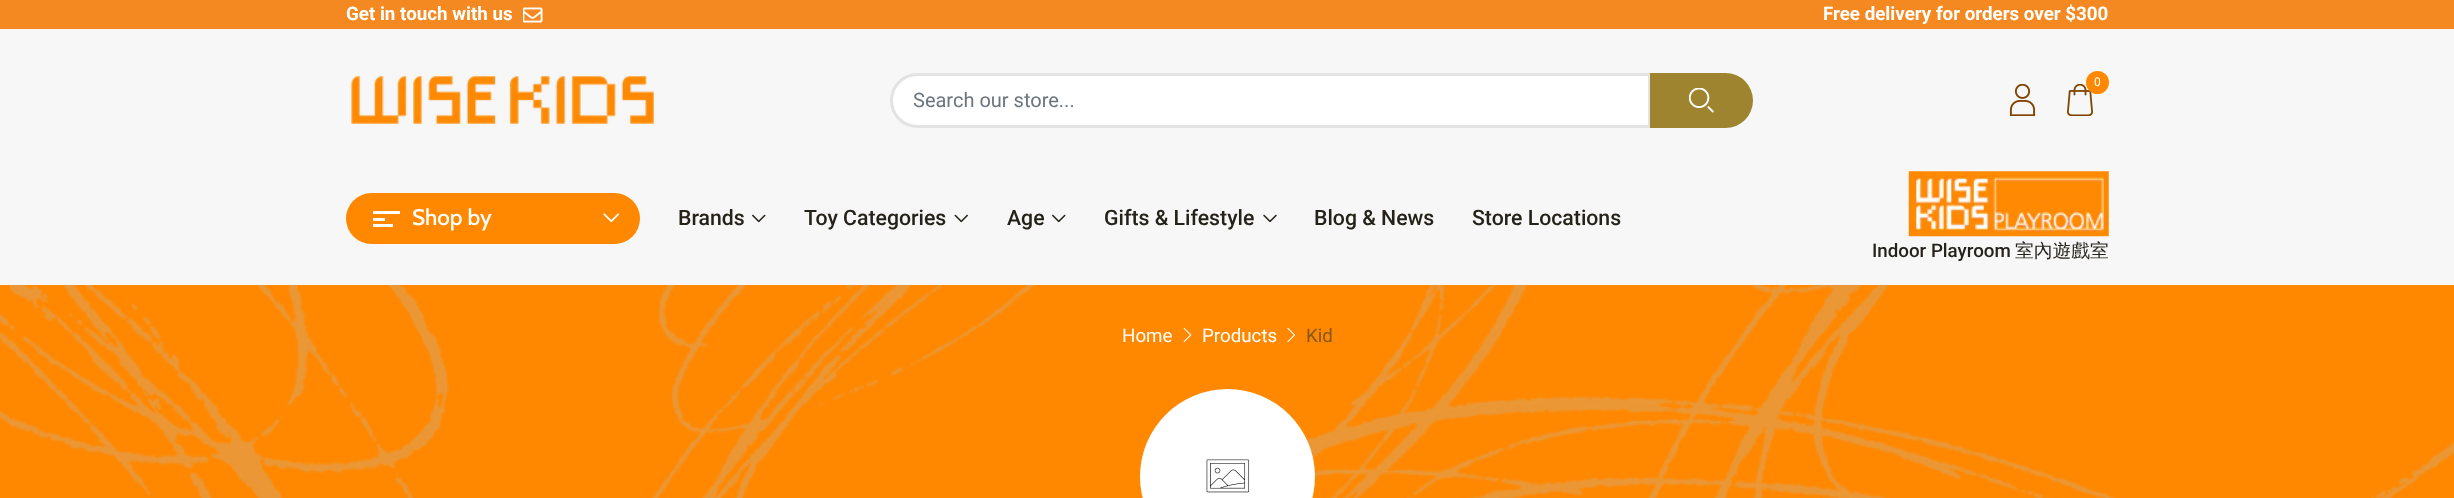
(async () => {
    const canvas = document.querySelector("canvas");
    canvas.width = 2454;
    canvas.height = 498;
    const context = canvas.getContext("2d");
    context.miterLimit = 4;
    context.fontKerning = "normal";
    function write(s, x, y, font, color) {
        context.font = font;
        context.fillStyle = color;
        context.fillText(s, x, y);
    }
    function block(x, y, w, h, color) {
        context.fillStyle = color;
        context.fillRect(x, y, w, h);
    }
    function card(x, y, w, h, r, color) {
        context.fillStyle = color;
        context.beginPath();
        context.roundRect(x, y, w, h, r);
        context.fill();
    }
    async function photo(src, x, y, w, h) {
        const img = new Image();
        img.src = src;
        await img.decode();
        context.drawImage(img, x, y, w, h);
    }

    block(0, 0, 2454, 498, "rgb(244, 137, 34)");
    write("Get in touch with us", 346, 20, "bold 18.75px Roboto", "rgb(255, 255, 255)");
    await photo("media/1.png", 523, 7, 20, 16);
    write("Free delivery for orders over $300", 1823, 20, "bold 18.75px Roboto", "rgb(255, 255, 255)");
    block(0, 29, 2454, 256, "rgb(247, 247, 247)");
    await photo("media/2.png", 351, 75, 304, 49);
    await photo("media/3.png", 2067, 84, 26, 32);
    context.fillStyle = "rgb(255, 136, 0)";
    context.beginPath();
    context.arc(2097.5, 82.5, 11.5, 0, Math.PI * 2);
    context.fill();
    write("0", 2094, 86, "12px Roboto", "rgb(255, 255, 255)");
    await photo("media/4.png", 2009, 84, 27, 32);
    context.beginPath();
    context.roundRect(891.5, 74.5, 758, 52, [26, 0, 0, 26]);
    context.fill();
    context.strokeStyle = "rgb(227, 227, 227)";
    context.lineWidth = 3;
    context.stroke();
    write("Search our store...", 913, 107, "20px Roboto", "rgb(108, 117, 125)");
    context.fillStyle = "rgb(158, 132, 47)";
    context.beginPath();
    context.roundRect(1650, 73, 103, 55, [0, 27.5, 27.5, 0]);
    context.fill();
    await photo("media/5.png", 1689, 88, 25, 25);
    card(346, 193, 294, 51, 25.5, "rgb(255, 136, 0)");
    block(373, 211, 27, 3, "rgb(255, 255, 255)");
    block(373, 218, 12, 3, "rgb(255, 255, 255)");
    block(373, 224, 20, 3, "rgb(255, 255, 255)");
    write("Shop by", 412, 225, "500 22.5px Cabin", "rgb(255, 255, 255)");
    await photo("media/6.png", 603, 213, 17, 10);
    write("Brands", 678, 225, "500 21.25px Roboto", "rgb(37, 34, 26)");
    await photo("media/7.png", 752, 214, 14, 9);
    write("Toy Categories", 804, 225, "500 21.25px Roboto", "rgb(37, 34, 26)");
    await photo("media/8.png", 954, 214, 14, 9);
    write("Age", 1007, 225, "500 21.25px Roboto", "rgb(37, 34, 26)");
    await photo("media/7.png", 1052, 214, 14, 9);
    write("Gifts & Lifestyle", 1104, 225, "500 21.25px Roboto", "rgb(37, 34, 26)");
    await photo("media/9.png", 1263, 214, 14, 9);
    write("Blog & News", 1314, 225, "500 21.25px Roboto", "rgb(37, 34, 26)");
    write("Store Locations", 1472, 225, "500 21.25px Roboto", "rgb(37, 34, 26)");
    await photo("media/10.png", 1908, 171, 201, 66);
    write("Indoor Playroom", 1872, 257, "500 18.75px Roboto", "rgb(37, 34, 26)");
    write("室內遊戲室", 2015, 257, "500 18.75px WenQuanYi Zen Hei", "rgb(37, 34, 26)");
    block(0, 285, 2454, 213, "rgb(255, 136, 0)");
    await photo("media/11.png", 0, 285, 2454, 213);
    write("Home", 1122, 342, "18.75px Roboto", "rgb(255, 255, 255)");
    await photo("media/12.png", 1183, 327, 9, 16);
    write("Products", 1202, 342, "18.75px Roboto", "rgb(255, 255, 255)");
    await photo("media/13.png", 1287, 328, 8, 14);
    write("Kid", 1306, 342, "18.75px Roboto", "rgb(133, 88, 31)");
    context.fillStyle = "rgb(255, 255, 255)";
    context.beginPath();
    context.arc(1227.5, 476.5, 87.5, 0, Math.PI * 2);
    context.fill();
    await photo("media/14.png", 1206, 459, 44, 34);
})();
